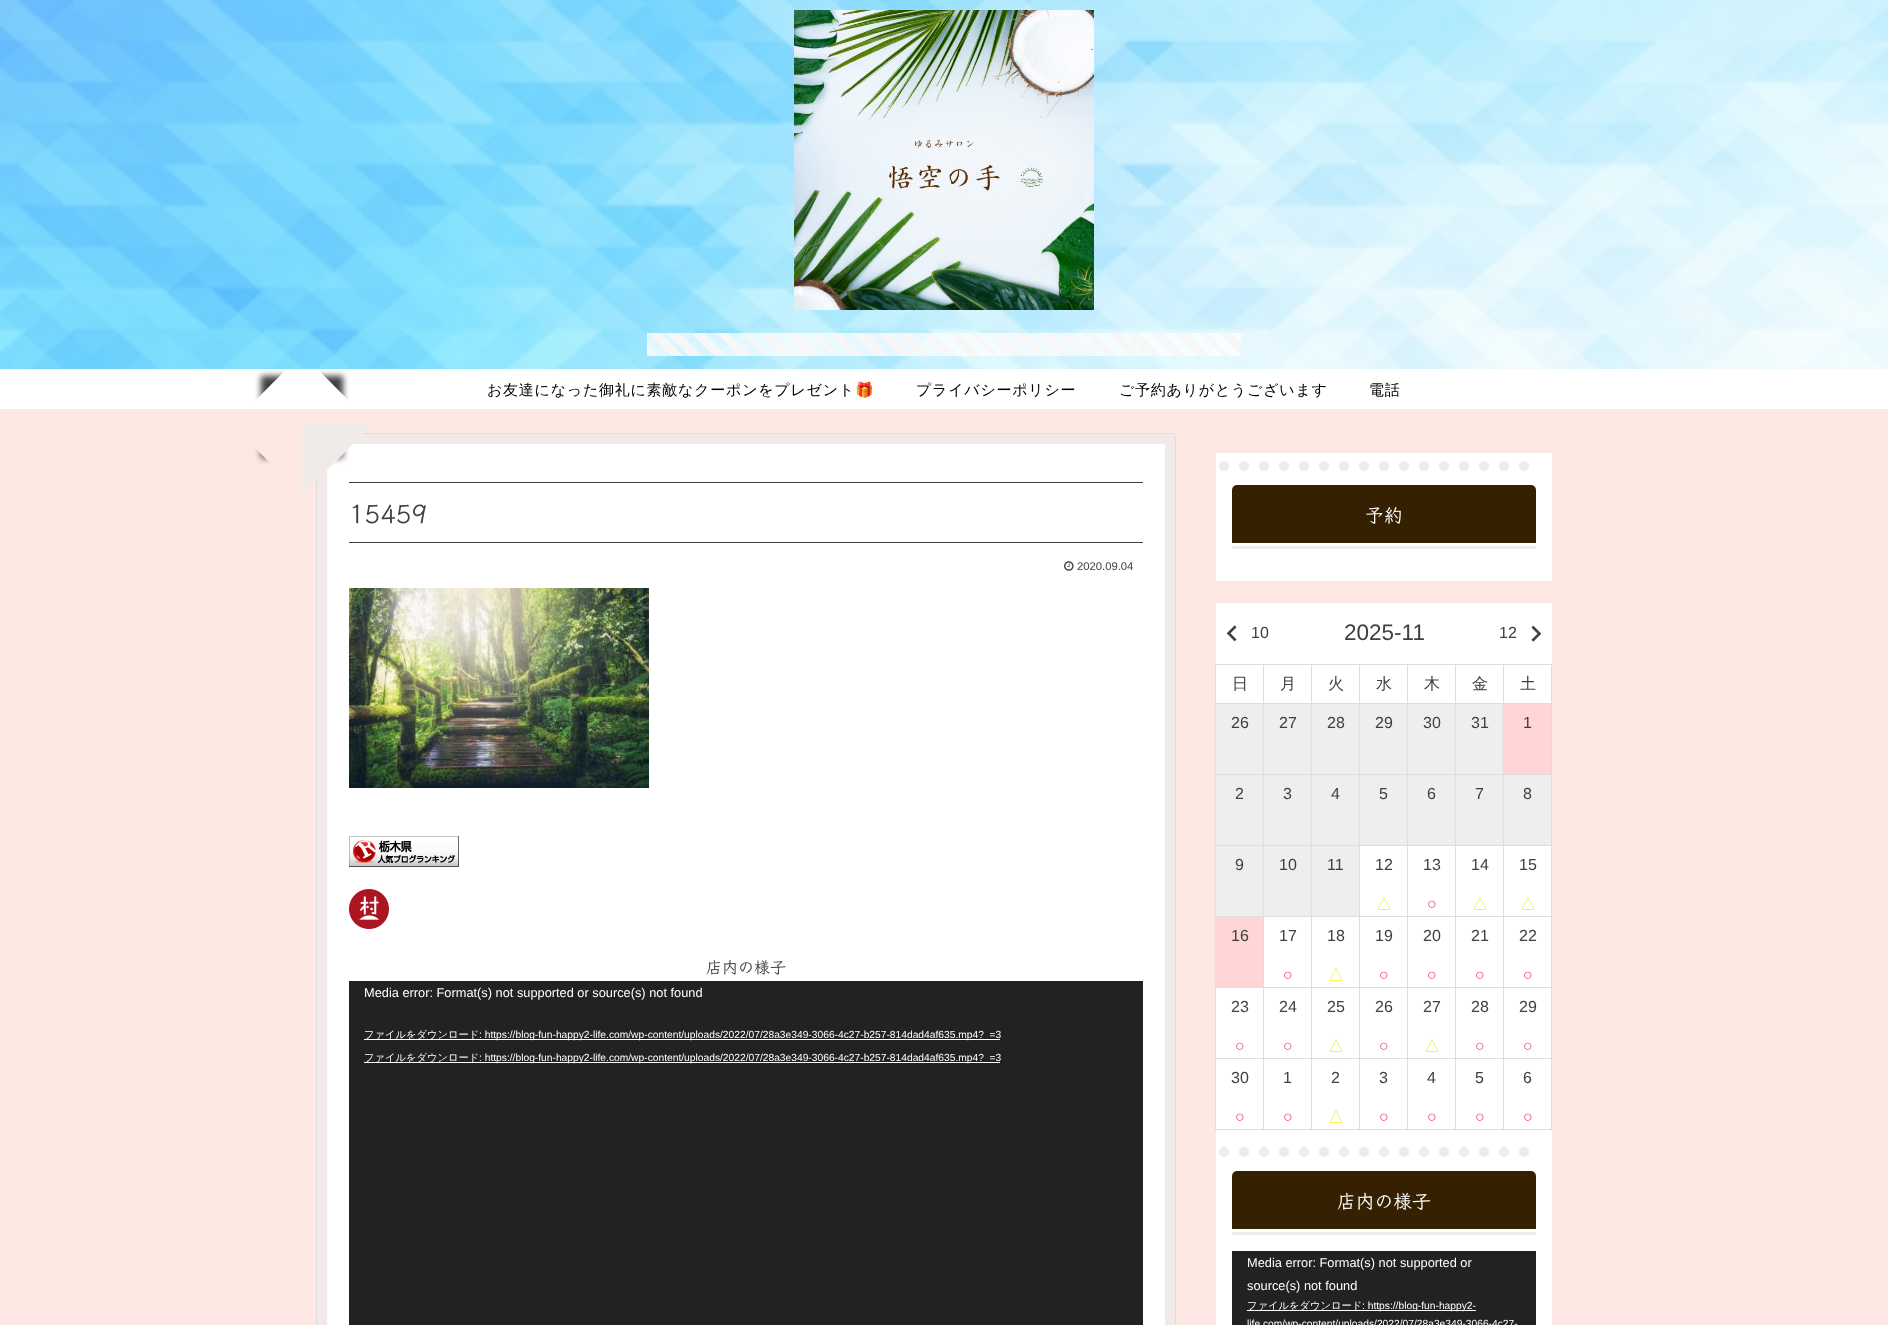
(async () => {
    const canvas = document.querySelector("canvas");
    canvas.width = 1888;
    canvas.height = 1325;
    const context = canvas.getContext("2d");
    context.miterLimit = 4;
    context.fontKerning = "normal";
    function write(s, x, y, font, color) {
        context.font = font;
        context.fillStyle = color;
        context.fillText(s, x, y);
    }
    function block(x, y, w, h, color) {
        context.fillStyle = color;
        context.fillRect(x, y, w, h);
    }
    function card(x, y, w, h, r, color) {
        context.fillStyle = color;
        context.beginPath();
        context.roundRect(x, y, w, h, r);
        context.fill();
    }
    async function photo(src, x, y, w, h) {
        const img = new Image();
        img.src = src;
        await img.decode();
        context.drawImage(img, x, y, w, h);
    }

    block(0, 0, 1888, 1325, "rgb(254, 232, 227)");
    await photo("media/1.png", 0, 0, 1888, 369);
    await photo("media/2.png", 794, 10, 300, 300);
    block(0, 369, 1888, 40, "rgb(255, 255, 255)");
    context.letterSpacing = "0.75px";
    write("お友達になった御礼に素敵なクーポンをプレゼント", 487, 395, "500 15px WenQuanYi Zen Hei", "rgb(0, 0, 0)");
    write("🎁", 855, 395, "15px Noto Color Emoji", "rgb(0, 0, 0)");
    write("プライバシーポリシー", 916, 395, "500 15px WenQuanYi Zen Hei", "rgb(0, 0, 0)");
    write("ご予約ありがとうございます", 1119, 395, "500 15px WenQuanYi Zen Hei", "rgb(0, 0, 0)");
    write("電話", 1369, 395, "500 15px WenQuanYi Zen Hei", "rgb(0, 0, 0)");
    card(316, 433, 860, 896, 4, "rgb(255, 255, 255)");
    context.beginPath();
    context.moveTo(322, 439);
    context.lineTo(1170, 439);
    context.lineTo(1170, 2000);
    context.lineTo(322, 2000);
    context.closePath();
    context.strokeStyle = "rgb(240, 235, 232)";
    context.lineWidth = 10;
    context.stroke();
    context.beginPath();
    context.roundRect(316.5, 433.5, 859, 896, 3.5);
    context.strokeStyle = "rgb(221, 221, 221)";
    context.lineWidth = 1;
    context.stroke();
    context.save();
    context.beginPath();
    context.moveTo(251, 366);
    context.lineTo(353, 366);
    context.lineTo(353, 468);
    context.lineTo(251, 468);
    context.closePath();
    context.moveTo(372.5, 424.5);
    context.lineTo(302, 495);
    context.lineTo(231.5, 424.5);
    context.lineTo(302, 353.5);
    context.closePath();
    context.clip("evenodd");
    context.fillStyle = "rgb(65, 64, 62)";
    context.filter = "blur(3px)";
    context.beginPath();
    context.rect(261, 376, 82, 82);
    context.fill();
    context.filter = "none";
    context.restore();
    block(349, 482, 794, 1, "rgb(65, 64, 62)");
    context.fillStyle = "rgb(240, 235, 232)";
    context.beginPath();
    context.moveTo(373, 424);
    context.lineTo(302, 495);
    context.lineTo(302, 424);
    context.closePath();
    context.fill();
    block(349, 542, 794, 1, "rgb(65, 64, 62)");
    context.letterSpacing = "0px";
    write("15459", 349, 523, "600 26px Klee One", "rgb(65, 64, 62)");
    await photo("media/3.png", 1064, 561, 10, 10);
    write("2020.09.04", 1077, 570, "11.25px Liberation Sans", "rgb(65, 64, 62)");
    await photo("media/4.png", 349, 588, 300, 200);
    await photo("media/5.png", 349, 836, 110, 31);
    await photo("media/6.png", 349, 889, 40, 40);
    write("店内の様子", 706, 973, "600 16px Klee One", "rgb(65, 64, 62)");
    block(349, 981, 794, 344, "rgb(34, 34, 34)");
    write("Media error: Format(s) not supported or source(s) not found", 364, 997, "12.8px Liberation Sans", "rgb(255, 255, 255)");
    block(364, 1039, 636, 1, "rgb(255, 255, 255)");
    write("ファイルをダウンロード", 364, 1038, "500 10.25px WenQuanYi Zen Hei", "rgb(255, 255, 255)");
    write(": https://blog-fun-happy2-life.com/wp-content/uploads/2022/07/28a3e349-3066-4c27-b257-814dad4af635.mp4?_=3", 479, 1038, "10.25px Liberation Sans", "rgb(255, 255, 255)");
    block(364, 1062, 636, 1, "rgb(255, 255, 255)");
    write("ファイルをダウンロード", 364, 1061, "500 10.25px WenQuanYi Zen Hei", "rgb(255, 255, 255)");
    write(": https://blog-fun-happy2-life.com/wp-content/uploads/2022/07/28a3e349-3066-4c27-b257-814dad4af635.mp4?_=3", 479, 1061, "10.25px Liberation Sans", "rgb(255, 255, 255)");
    block(1216, 453, 336, 128, "rgb(255, 255, 255)");
    context.beginPath();
    context.moveTo(1224, 466);
    context.lineTo(1544, 466);
    context.strokeStyle = "rgb(240, 235, 232)";
    context.lineWidth = 10;
    context.lineCap = "round";
    context.setLineDash([0, 20]);
    context.stroke();
    block(1232, 546, 304, 3, "rgb(240, 235, 232)");
    context.fillStyle = "rgb(53, 33, 2)";
    context.beginPath();
    context.roundRect(1232, 485, 304, 61, [5, 5, 0, 0]);
    context.fill();
    block(1232, 543, 304, 3, "rgb(255, 255, 255)");
    write("予約", 1365, 522, "600 18.75px Klee One", "rgb(255, 255, 255)");
    block(1216, 603, 336, 722, "rgb(255, 255, 255)");
    await photo("media/7.png", 1226, 625, 11, 17);
    write("10", 1251, 638, "16px Liberation Sans", "rgb(65, 64, 62)");
    write("2025-11", 1344, 640, "22.5px Liberation Sans", "rgb(65, 64, 62)");
    write("12", 1499, 638, "16px Liberation Sans", "rgb(65, 64, 62)");
    await photo("media/8.png", 1531, 625, 11, 17);
    context.strokeStyle = "rgb(221, 221, 221)";
    context.lineWidth = 1;
    context.setLineDash([]);
    context.strokeRect(1215.5, 664.5, 48, 39);
    write("日", 1232, 689, "500 16px WenQuanYi Zen Hei", "rgb(65, 64, 62)");
    context.strokeRect(1263.5, 664.5, 48, 39);
    write("月", 1280, 689, "500 16px WenQuanYi Zen Hei", "rgb(65, 64, 62)");
    context.strokeRect(1311.5, 664.5, 48, 39);
    write("火", 1328, 689, "500 16px WenQuanYi Zen Hei", "rgb(65, 64, 62)");
    context.strokeRect(1359.5, 664.5, 48, 39);
    write("水", 1376, 689, "500 16px WenQuanYi Zen Hei", "rgb(65, 64, 62)");
    context.strokeRect(1407.5, 664.5, 48, 39);
    write("木", 1424, 689, "500 16px WenQuanYi Zen Hei", "rgb(65, 64, 62)");
    context.strokeRect(1455.5, 664.5, 48, 39);
    write("金", 1472, 689, "500 16px WenQuanYi Zen Hei", "rgb(65, 64, 62)");
    context.strokeRect(1503.5, 664.5, 48, 39);
    write("土", 1520, 689, "500 16px WenQuanYi Zen Hei", "rgb(65, 64, 62)");
    context.fillStyle = "rgb(238, 238, 238)";
    context.beginPath();
    context.rect(1215.5, 703.5, 48, 71);
    context.fill();
    context.stroke();
    write("26", 1231, 728, "16px Liberation Sans", "rgb(65, 64, 62)");
    context.fillStyle = "rgb(238, 238, 238)";
    context.beginPath();
    context.rect(1263.5, 703.5, 48, 71);
    context.fill();
    context.stroke();
    write("27", 1279, 728, "16px Liberation Sans", "rgb(65, 64, 62)");
    context.fillStyle = "rgb(238, 238, 238)";
    context.beginPath();
    context.rect(1311.5, 703.5, 48, 71);
    context.fill();
    context.stroke();
    write("28", 1327, 728, "16px Liberation Sans", "rgb(65, 64, 62)");
    context.fillStyle = "rgb(238, 238, 238)";
    context.beginPath();
    context.rect(1359.5, 703.5, 48, 71);
    context.fill();
    context.stroke();
    write("29", 1375, 728, "16px Liberation Sans", "rgb(65, 64, 62)");
    context.fillStyle = "rgb(238, 238, 238)";
    context.beginPath();
    context.rect(1407.5, 703.5, 48, 71);
    context.fill();
    context.stroke();
    write("30", 1423, 728, "16px Liberation Sans", "rgb(65, 64, 62)");
    context.fillStyle = "rgb(238, 238, 238)";
    context.beginPath();
    context.rect(1455.5, 703.5, 48, 71);
    context.fill();
    context.stroke();
    write("31", 1471, 728, "16px Liberation Sans", "rgb(65, 64, 62)");
    context.fillStyle = "rgb(255, 213, 213)";
    context.beginPath();
    context.rect(1503.5, 703.5, 48, 71);
    context.fill();
    context.stroke();
    write("1", 1523, 728, "16px Liberation Sans", "rgb(65, 64, 62)");
    context.fillStyle = "rgb(238, 238, 238)";
    context.beginPath();
    context.rect(1215.5, 774.5, 48, 71);
    context.fill();
    context.stroke();
    write("2", 1235, 799, "16px Liberation Sans", "rgb(65, 64, 62)");
    context.fillStyle = "rgb(238, 238, 238)";
    context.beginPath();
    context.rect(1263.5, 774.5, 48, 71);
    context.fill();
    context.stroke();
    write("3", 1283, 799, "16px Liberation Sans", "rgb(65, 64, 62)");
    context.fillStyle = "rgb(238, 238, 238)";
    context.beginPath();
    context.rect(1311.5, 774.5, 48, 71);
    context.fill();
    context.stroke();
    write("4", 1331, 799, "16px Liberation Sans", "rgb(65, 64, 62)");
    context.fillStyle = "rgb(238, 238, 238)";
    context.beginPath();
    context.rect(1359.5, 774.5, 48, 71);
    context.fill();
    context.stroke();
    write("5", 1379, 799, "16px Liberation Sans", "rgb(65, 64, 62)");
    context.fillStyle = "rgb(238, 238, 238)";
    context.beginPath();
    context.rect(1407.5, 774.5, 48, 71);
    context.fill();
    context.stroke();
    write("6", 1427, 799, "16px Liberation Sans", "rgb(65, 64, 62)");
    context.fillStyle = "rgb(238, 238, 238)";
    context.beginPath();
    context.rect(1455.5, 774.5, 48, 71);
    context.fill();
    context.stroke();
    write("7", 1475, 799, "16px Liberation Sans", "rgb(65, 64, 62)");
    context.fillStyle = "rgb(238, 238, 238)";
    context.beginPath();
    context.rect(1503.5, 774.5, 48, 71);
    context.fill();
    context.stroke();
    write("8", 1523, 799, "16px Liberation Sans", "rgb(65, 64, 62)");
    context.fillStyle = "rgb(238, 238, 238)";
    context.beginPath();
    context.rect(1215.5, 845.5, 48, 71);
    context.fill();
    context.stroke();
    write("9", 1235, 870, "16px Liberation Sans", "rgb(65, 64, 62)");
    context.fillStyle = "rgb(238, 238, 238)";
    context.beginPath();
    context.rect(1263.5, 845.5, 48, 71);
    context.fill();
    context.stroke();
    write("10", 1279, 870, "16px Liberation Sans", "rgb(65, 64, 62)");
    context.fillStyle = "rgb(238, 238, 238)";
    context.beginPath();
    context.rect(1311.5, 845.5, 48, 71);
    context.fill();
    context.stroke();
    write("11", 1327, 870, "16px Liberation Sans", "rgb(65, 64, 62)");
    context.strokeRect(1359.5, 845.5, 48, 71);
    write("12", 1375, 870, "16px Liberation Sans", "rgb(65, 64, 62)");
    write("△", 1376, 909, "500 16px WenQuanYi Zen Hei", "rgb(238, 238, 34)");
    context.strokeRect(1407.5, 845.5, 48, 71);
    write("13", 1423, 870, "16px Liberation Sans", "rgb(65, 64, 62)");
    write("○", 1427, 909, "16px Liberation Serif", "rgb(234, 53, 96)");
    context.strokeRect(1455.5, 845.5, 48, 71);
    write("14", 1471, 870, "16px Liberation Sans", "rgb(65, 64, 62)");
    write("△", 1472, 909, "500 16px WenQuanYi Zen Hei", "rgb(238, 238, 34)");
    context.strokeRect(1503.5, 845.5, 48, 71);
    write("15", 1519, 870, "16px Liberation Sans", "rgb(65, 64, 62)");
    write("△", 1520, 909, "500 16px WenQuanYi Zen Hei", "rgb(238, 238, 34)");
    context.fillStyle = "rgb(255, 213, 213)";
    context.beginPath();
    context.rect(1215.5, 916.5, 48, 71);
    context.fill();
    context.stroke();
    write("16", 1231, 941, "16px Liberation Sans", "rgb(65, 64, 62)");
    context.strokeRect(1263.5, 916.5, 48, 71);
    write("17", 1279, 941, "16px Liberation Sans", "rgb(65, 64, 62)");
    write("○", 1283, 980, "16px Liberation Serif", "rgb(234, 53, 96)");
    context.strokeRect(1311.5, 916.5, 48, 71);
    write("18", 1327, 941, "16px Liberation Sans", "rgb(65, 64, 62)");
    write("△", 1328, 980, "500 16px WenQuanYi Zen Hei", "rgb(238, 238, 34)");
    context.strokeRect(1359.5, 916.5, 48, 71);
    write("19", 1375, 941, "16px Liberation Sans", "rgb(65, 64, 62)");
    write("○", 1379, 980, "16px Liberation Serif", "rgb(234, 53, 96)");
    context.strokeRect(1407.5, 916.5, 48, 71);
    write("20", 1423, 941, "16px Liberation Sans", "rgb(65, 64, 62)");
    write("○", 1427, 980, "16px Liberation Serif", "rgb(234, 53, 96)");
    context.strokeRect(1455.5, 916.5, 48, 71);
    write("21", 1471, 941, "16px Liberation Sans", "rgb(65, 64, 62)");
    write("○", 1475, 980, "16px Liberation Serif", "rgb(234, 53, 96)");
    context.strokeRect(1503.5, 916.5, 48, 71);
    write("22", 1519, 941, "16px Liberation Sans", "rgb(65, 64, 62)");
    write("○", 1523, 980, "16px Liberation Serif", "rgb(234, 53, 96)");
    context.strokeRect(1215.5, 987.5, 48, 71);
    write("23", 1231, 1012, "16px Liberation Sans", "rgb(65, 64, 62)");
    write("○", 1235, 1051, "16px Liberation Serif", "rgb(234, 53, 96)");
    context.strokeRect(1263.5, 987.5, 48, 71);
    write("24", 1279, 1012, "16px Liberation Sans", "rgb(65, 64, 62)");
    write("○", 1283, 1051, "16px Liberation Serif", "rgb(234, 53, 96)");
    context.strokeRect(1311.5, 987.5, 48, 71);
    write("25", 1327, 1012, "16px Liberation Sans", "rgb(65, 64, 62)");
    write("△", 1328, 1051, "500 16px WenQuanYi Zen Hei", "rgb(238, 238, 34)");
    context.strokeRect(1359.5, 987.5, 48, 71);
    write("26", 1375, 1012, "16px Liberation Sans", "rgb(65, 64, 62)");
    write("○", 1379, 1051, "16px Liberation Serif", "rgb(234, 53, 96)");
    context.strokeRect(1407.5, 987.5, 48, 71);
    write("27", 1423, 1012, "16px Liberation Sans", "rgb(65, 64, 62)");
    write("△", 1424, 1051, "500 16px WenQuanYi Zen Hei", "rgb(238, 238, 34)");
    context.strokeRect(1455.5, 987.5, 48, 71);
    write("28", 1471, 1012, "16px Liberation Sans", "rgb(65, 64, 62)");
    write("○", 1475, 1051, "16px Liberation Serif", "rgb(234, 53, 96)");
    context.strokeRect(1503.5, 987.5, 48, 71);
    write("29", 1519, 1012, "16px Liberation Sans", "rgb(65, 64, 62)");
    write("○", 1523, 1051, "16px Liberation Serif", "rgb(234, 53, 96)");
    context.strokeRect(1215.5, 1058.5, 48, 71);
    write("30", 1231, 1083, "16px Liberation Sans", "rgb(65, 64, 62)");
    write("○", 1235, 1122, "16px Liberation Serif", "rgb(234, 53, 96)");
    context.strokeRect(1263.5, 1058.5, 48, 71);
    write("1", 1283, 1083, "16px Liberation Sans", "rgb(65, 64, 62)");
    write("○", 1283, 1122, "16px Liberation Serif", "rgb(234, 53, 96)");
    context.strokeRect(1311.5, 1058.5, 48, 71);
    write("2", 1331, 1083, "16px Liberation Sans", "rgb(65, 64, 62)");
    write("△", 1328, 1122, "500 16px WenQuanYi Zen Hei", "rgb(238, 238, 34)");
    context.strokeRect(1359.5, 1058.5, 48, 71);
    write("3", 1379, 1083, "16px Liberation Sans", "rgb(65, 64, 62)");
    write("○", 1379, 1122, "16px Liberation Serif", "rgb(234, 53, 96)");
    context.strokeRect(1407.5, 1058.5, 48, 71);
    write("4", 1427, 1083, "16px Liberation Sans", "rgb(65, 64, 62)");
    write("○", 1427, 1122, "16px Liberation Serif", "rgb(234, 53, 96)");
    context.strokeRect(1455.5, 1058.5, 48, 71);
    write("5", 1475, 1083, "16px Liberation Sans", "rgb(65, 64, 62)");
    write("○", 1475, 1122, "16px Liberation Serif", "rgb(234, 53, 96)");
    context.strokeRect(1503.5, 1058.5, 48, 71);
    write("6", 1523, 1083, "16px Liberation Sans", "rgb(65, 64, 62)");
    write("○", 1523, 1122, "16px Liberation Serif", "rgb(234, 53, 96)");
    context.beginPath();
    context.moveTo(1224, 1152);
    context.lineTo(1544, 1152);
    context.strokeStyle = "rgb(240, 235, 232)";
    context.lineWidth = 10;
    context.setLineDash([0, 20]);
    context.stroke();
    block(1232, 1232, 304, 3, "rgb(240, 235, 232)");
    context.fillStyle = "rgb(53, 33, 2)";
    context.beginPath();
    context.roundRect(1232, 1171, 304, 61, [5, 5, 0, 0]);
    context.fill();
    block(1232, 1229, 304, 3, "rgb(255, 255, 255)");
    write("店内の様子", 1337, 1208, "600 18.75px Klee One", "rgb(255, 255, 255)");
    block(1232, 1251, 304, 74, "rgb(34, 34, 34)");
    write("Media error: Format(s) not supported or", 1247, 1267, "12.8px Liberation Sans", "rgb(255, 255, 255)");
    write("source(s) not found", 1247, 1290, "12.8px Liberation Sans", "rgb(255, 255, 255)");
    block(1247, 1310, 229, 1, "rgb(255, 255, 255)");
    write("ファイルをダウンロード", 1247, 1309, "500 10.25px WenQuanYi Zen Hei", "rgb(255, 255, 255)");
    write(": https://blog-fun-happy2-", 1362, 1309, "10.25px Liberation Sans", "rgb(255, 255, 255)");
    write("life.com/wp-content/uploads/2022/07/28a3e349-3066-4c27-", 1247, 1327, "10.25px Liberation Sans", "rgb(255, 255, 255)");
})();
